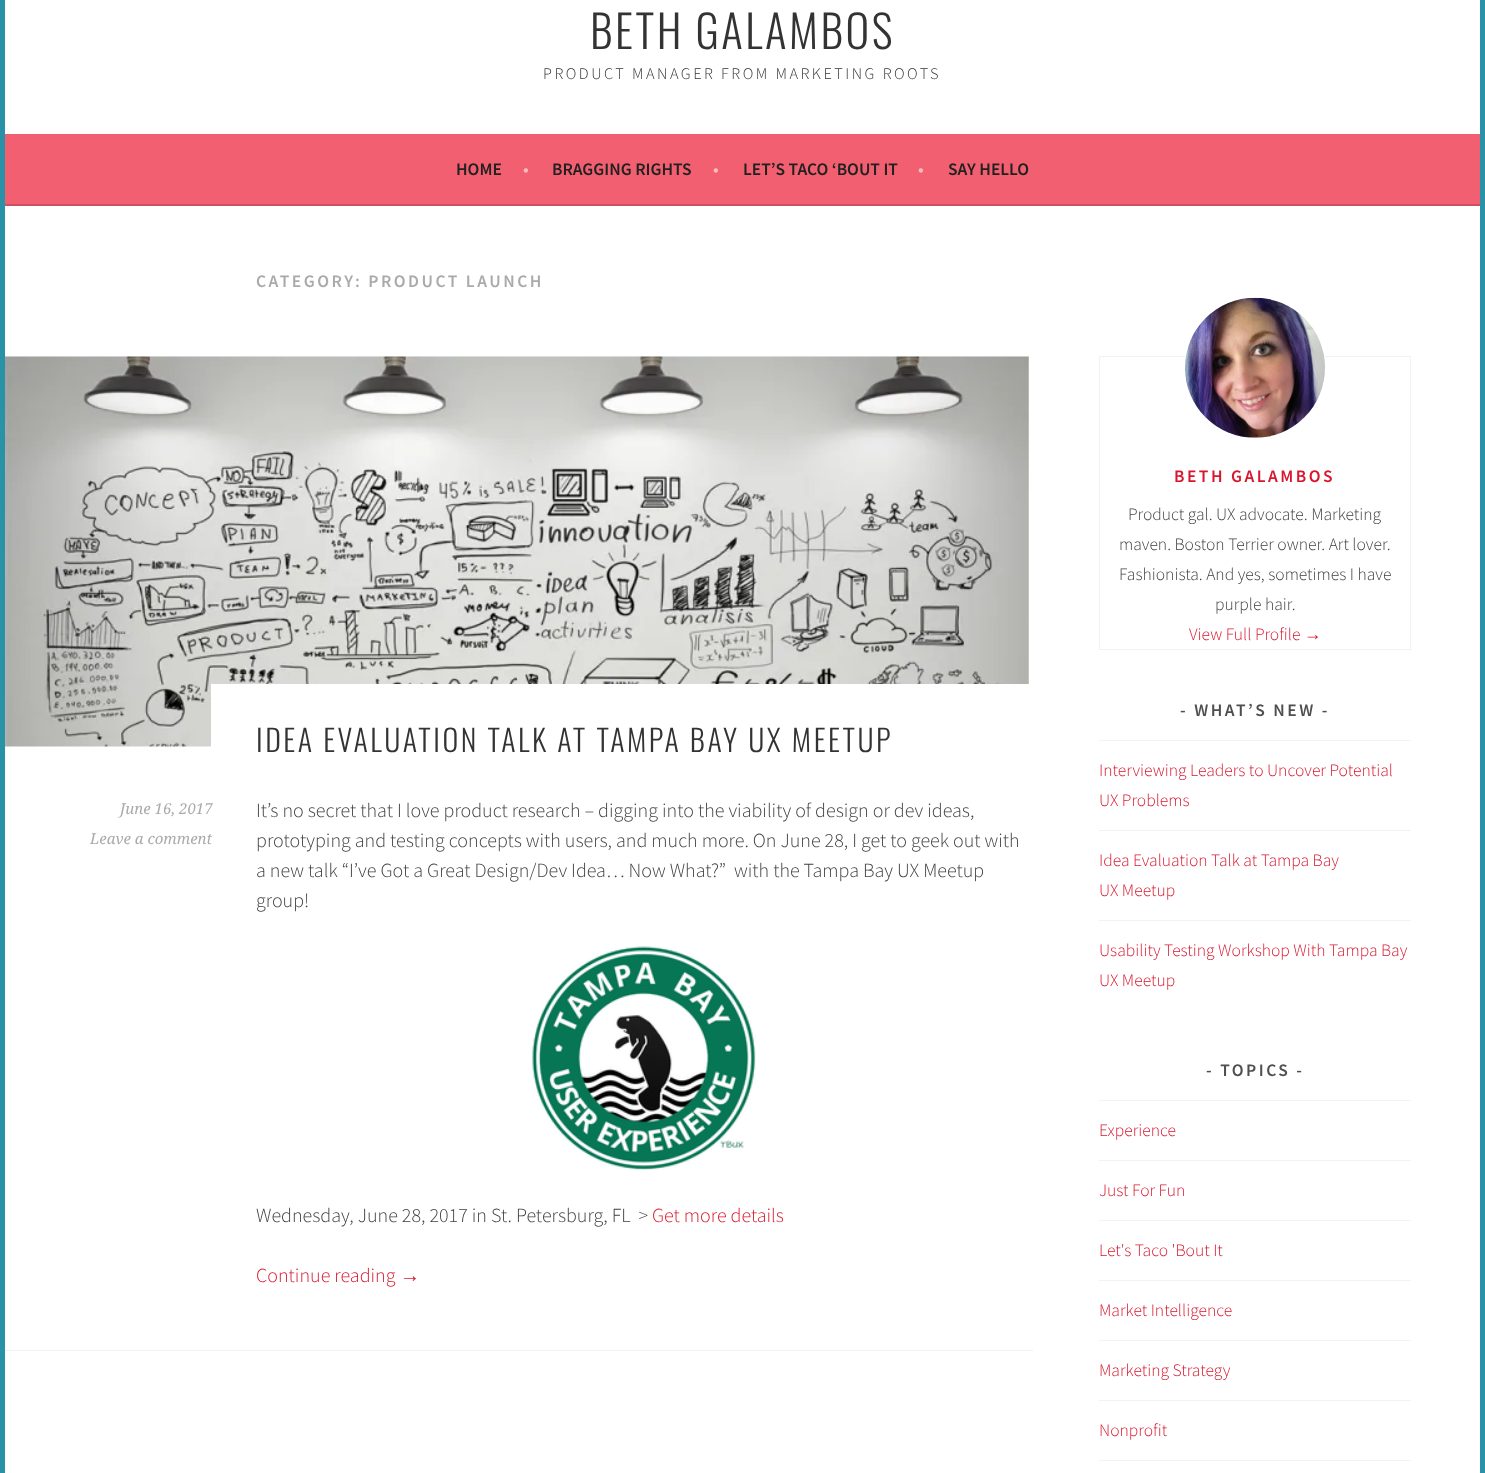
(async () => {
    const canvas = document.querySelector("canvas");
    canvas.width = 1485;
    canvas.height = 1473;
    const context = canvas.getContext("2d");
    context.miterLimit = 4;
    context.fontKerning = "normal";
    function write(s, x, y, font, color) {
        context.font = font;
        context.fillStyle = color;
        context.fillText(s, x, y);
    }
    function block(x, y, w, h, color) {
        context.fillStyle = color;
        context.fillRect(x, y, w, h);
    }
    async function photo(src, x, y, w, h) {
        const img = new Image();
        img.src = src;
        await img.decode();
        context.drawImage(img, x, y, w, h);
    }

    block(0, 0, 1485, 1473, "rgb(41, 146, 167)");
    block(5, 0, 1475, 134, "rgb(255, 255, 255)");
    context.letterSpacing = "2.5px";
    write("BETH GALAMBOS", 590, 49, "300 45px Oswald", "rgb(51, 51, 51)");
    write("PRODUCT MANAGER FROM MARKETING ROOTS", 543, 79, "300 16.25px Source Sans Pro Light", "rgb(51, 51, 51)");
    block(5, 134, 1475, 70, "rgb(242, 95, 112)");
    block(5, 204, 1475, 2, "rgb(206, 81, 95)");
    context.letterSpacing = "0px";
    write("HOME", 456, 175, "600 17.5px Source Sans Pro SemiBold", "rgb(33, 33, 33)");
    write("•", 523, 175, "600 17.5px Source Sans Pro SemiBold", "rgb(249, 188, 196)");
    write("BRAGGING RIGHTS", 552, 175, "600 17.5px Source Sans Pro SemiBold", "rgb(33, 33, 33)");
    write("•", 713, 175, "600 17.5px Source Sans Pro SemiBold", "rgb(249, 188, 196)");
    write("LET’S TACO ‘BOUT IT", 743, 175, "600 17.5px Source Sans Pro SemiBold", "rgb(33, 33, 33)");
    write("•", 918, 175, "600 17.5px Source Sans Pro SemiBold", "rgb(249, 188, 196)");
    write("SAY HELLO", 948, 175, "600 17.5px Source Sans Pro SemiBold", "rgb(33, 33, 33)");
    block(5, 206, 1475, 1267, "rgb(255, 255, 255)");
    context.letterSpacing = "2.5px";
    write("CATEGORY: PRODUCT LAUNCH", 256, 287, "600 17.5px Source Sans Pro SemiBold", "rgb(170, 170, 170)");
    block(5, 356, 1024, 328, "rgb(248, 249, 248)");
    await photo("media/1.png", 5, 356, 1024, 391);
    block(211, 684, 818, 63, "rgb(255, 255, 255)");
    write("IDEA EVALUATION TALK AT TAMPA BAY UX MEETUP", 256, 752, "300 30px Oswald", "rgb(51, 51, 51)");
    context.letterSpacing = "0px";
    write("June 16, 2017", 120, 814, "italic 15px Droid Serif", "rgb(170, 170, 170)");
    write("Leave a comment", 90, 844, "italic 15px Droid Serif", "rgb(170, 170, 170)");
    write("It’s no secret that I love product research – digging into the viability of design or dev ideas,", 256, 817, "300 20px Source Sans Pro Light", "rgb(64, 64, 64)");
    write("prototyping and testing concepts with users, and much more. On June 28, I get to geek out with", 256, 847, "300 20px Source Sans Pro Light", "rgb(64, 64, 64)");
    write("a new talk “I’ve Got a Great Design/Dev Idea… Now What?”  with the Tampa Bay UX Meetup", 256, 877, "300 20px Source Sans Pro Light", "rgb(64, 64, 64)");
    write("group!", 256, 907, "300 20px Source Sans Pro Light", "rgb(64, 64, 64)");
    await photo("media/2.png", 532, 946, 224, 224);
    write("Wednesday, June 28, 2017 in St. Petersburg, FL  >", 256, 1222, "300 20px Source Sans Pro Light", "rgb(64, 64, 64)");
    write("Get more details", 652, 1222, "300 20px Source Sans Pro Light", "rgb(216, 22, 45)");
    write("Continue reading", 256, 1282, "300 20px Source Sans Pro Light", "rgb(216, 22, 45)");
    write("→", 400, 1282, "20px Liberation Sans", "rgb(216, 22, 45)");
    block(5, 1350, 1028, 1, "rgb(242, 242, 242)");
    context.strokeStyle = "rgb(242, 242, 242)";
    context.strokeRect(1099.5, 356.5, 311, 293);
    await photo("media/3.png", 1185, 297, 140, 141);
    context.letterSpacing = "2.5px";
    write("BETH GALAMBOS", 1174, 482, "600 17.5px Source Sans Pro SemiBold", "rgb(216, 22, 45)");
    context.letterSpacing = "0px";
    write("Product gal. UX advocate. Marketing", 1128, 520, "300 17.5px Source Sans Pro Light", "rgb(64, 64, 64)");
    write("maven. Boston Terrier owner. Art lover.", 1119, 550, "300 17.5px Source Sans Pro Light", "rgb(64, 64, 64)");
    write("Fashionista. And yes, sometimes I have", 1119, 580, "300 17.5px Source Sans Pro Light", "rgb(64, 64, 64)");
    write("purple hair.", 1215, 610, "300 17.5px Source Sans Pro Light", "rgb(64, 64, 64)");
    write("View Full Profile", 1189, 640, "300 17.5px Source Sans Pro Light", "rgb(216, 22, 45)");
    write("→", 1304, 640, "17.5px Liberation Sans", "rgb(216, 22, 45)");
    context.letterSpacing = "2.5px";
    write("- WHAT’S NEW -", 1180, 716, "600 17.5px Source Sans Pro SemiBold", "rgb(79, 79, 79)");
    block(1099, 740, 312, 1, "rgb(242, 242, 242)");
    context.letterSpacing = "0px";
    write("Interviewing Leaders to Uncover Potential", 1099, 776, "300 17.5px Source Sans Pro Light", "rgb(216, 22, 45)");
    write("UX Problems", 1099, 806, "300 17.5px Source Sans Pro Light", "rgb(216, 22, 45)");
    block(1099, 830, 312, 1, "rgb(242, 242, 242)");
    write("Idea Evaluation Talk at Tampa Bay", 1099, 866, "300 17.5px Source Sans Pro Light", "rgb(216, 22, 45)");
    write("UX Meetup", 1099, 896, "300 17.5px Source Sans Pro Light", "rgb(216, 22, 45)");
    block(1099, 920, 312, 1, "rgb(242, 242, 242)");
    write("Usability Testing Workshop With Tampa Bay", 1099, 956, "300 17.5px Source Sans Pro Light", "rgb(216, 22, 45)");
    write("UX Meetup", 1099, 986, "300 17.5px Source Sans Pro Light", "rgb(216, 22, 45)");
    context.letterSpacing = "2.5px";
    write("- TOPICS -", 1206, 1076, "600 17.5px Source Sans Pro SemiBold", "rgb(79, 79, 79)");
    block(1099, 1100, 312, 1, "rgb(242, 242, 242)");
    context.letterSpacing = "0px";
    write("Experience", 1099, 1136, "300 17.5px Source Sans Pro Light", "rgb(216, 22, 45)");
    block(1099, 1160, 312, 1, "rgb(242, 242, 242)");
    write("Just For Fun", 1099, 1196, "300 17.5px Source Sans Pro Light", "rgb(216, 22, 45)");
    block(1099, 1220, 312, 1, "rgb(242, 242, 242)");
    write("Let's Taco 'Bout It", 1099, 1256, "300 17.5px Source Sans Pro Light", "rgb(216, 22, 45)");
    block(1099, 1280, 312, 1, "rgb(242, 242, 242)");
    write("Market Intelligence", 1099, 1316, "300 17.5px Source Sans Pro Light", "rgb(216, 22, 45)");
    block(1099, 1340, 312, 1, "rgb(242, 242, 242)");
    write("Marketing Strategy", 1099, 1376, "300 17.5px Source Sans Pro Light", "rgb(216, 22, 45)");
    block(1099, 1400, 312, 1, "rgb(242, 242, 242)");
    write("Nonprofit", 1099, 1436, "300 17.5px Source Sans Pro Light", "rgb(216, 22, 45)");
    block(1099, 1460, 312, 1, "rgb(242, 242, 242)");
})();
